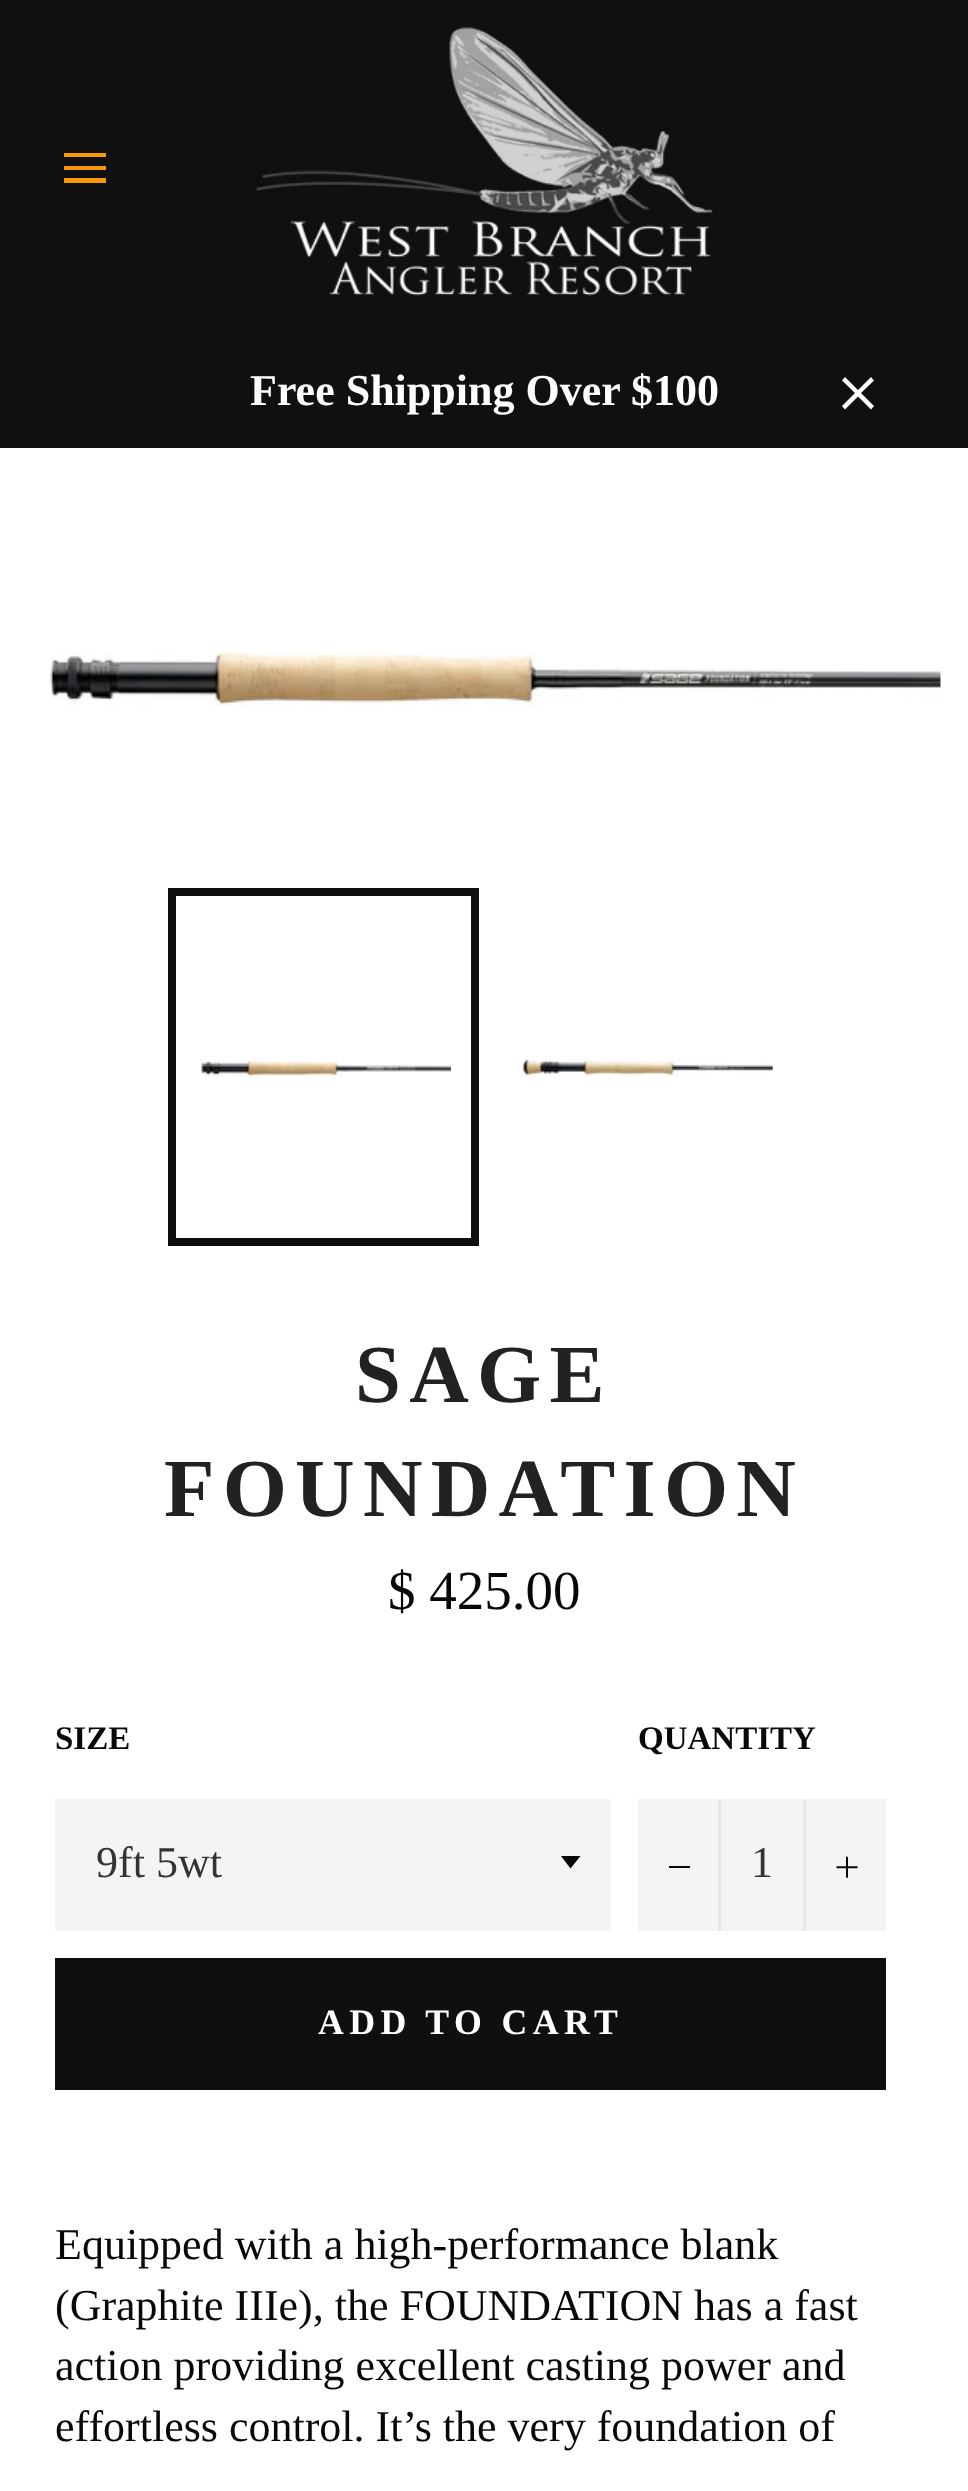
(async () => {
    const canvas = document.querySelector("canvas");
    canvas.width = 968;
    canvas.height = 2491;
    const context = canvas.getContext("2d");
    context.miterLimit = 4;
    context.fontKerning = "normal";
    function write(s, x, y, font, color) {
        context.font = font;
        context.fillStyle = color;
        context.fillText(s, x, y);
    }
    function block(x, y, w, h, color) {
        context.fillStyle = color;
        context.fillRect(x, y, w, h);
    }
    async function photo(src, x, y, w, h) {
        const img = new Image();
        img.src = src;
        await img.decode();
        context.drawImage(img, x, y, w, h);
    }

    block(0, 0, 968, 2491, "rgb(255, 255, 255)");
    block(0, 0, 968, 448, "rgb(16, 16, 16)");
    context.fillStyle = "rgb(245, 154, 2)";
    context.beginPath();
    context.moveTo(64, 166);
    context.lineTo(106, 166);
    context.lineTo(106, 170);
    context.lineTo(64, 170);
    context.closePath();
    context.moveTo(64, 153);
    context.lineTo(106, 153);
    context.lineTo(106, 157);
    context.lineTo(64, 157);
    context.closePath();
    context.moveTo(64, 178);
    context.lineTo(106, 178);
    context.lineTo(106, 183);
    context.lineTo(64, 183);
    context.closePath();
    context.fill();
    await photo("media/1.png", 255, 27, 458, 269);
    write("Free Shipping Over $100", 250, 405, "bold 44px Liberation Serif", "rgb(255, 255, 255)");
    context.beginPath();
    context.moveTo(874, 380.5);
    context.lineTo(871, 377);
    context.lineTo(858, 390);
    context.lineTo(845, 377);
    context.lineTo(842, 380.5);
    context.lineTo(855, 393);
    context.lineTo(842, 406);
    context.lineTo(845, 409.5);
    context.lineTo(858, 396.5);
    context.lineTo(871, 409.5);
    context.lineTo(874, 406);
    context.lineTo(861, 393);
    context.closePath();
    context.fill();
    await photo("media/2.png", 50, 651, 891, 56);
    await photo("media/3.png", 201, 1059, 250, 19);
    context.strokeStyle = "rgb(16, 15, 15)";
    context.lineWidth = 8;
    context.strokeRect(172, 892, 303, 350);
    await photo("media/4.png", 517, 1056, 256, 22);
    context.letterSpacing = "8.25px";
    write("SAGE", 355, 1402, "bold 82.5px Liberation Serif", "rgb(34, 34, 34)");
    write("FOUNDATION", 164, 1516, "bold 82.5px Liberation Serif", "rgb(34, 34, 34)");
    context.letterSpacing = "0px";
    write("$ 425.00", 388, 1609, "55px Liberation Serif", "rgb(8, 8, 8)");
    write("SIZE", 55, 1749, "bold 33px Liberation Serif", "rgb(8, 8, 8)");
    block(55, 1799, 556, 132, "rgb(244, 244, 244)");
    context.fillStyle = "rgb(8, 8, 8)";
    context.beginPath();
    context.moveTo(561, 1856);
    context.lineTo(570.5, 1868.5);
    context.lineTo(580.5, 1856);
    context.closePath();
    context.fill();
    write("9ft 5wt", 96, 1877, "44px Liberation Serif", "rgb(51, 51, 51)");
    write("QUANTITY", 638, 1749, "bold 33px Liberation Serif", "rgb(8, 8, 8)");
    block(638, 1799, 248, 132, "rgb(244, 244, 244)");
    block(718, 1799, 3, 132, "rgb(231, 231, 231)");
    block(669, 1866, 21, 2, "rgb(8, 8, 8)");
    write("1", 751, 1877, "44px Liberation Serif", "rgb(51, 51, 51)");
    block(803, 1799, 3, 132, "rgb(231, 231, 231)");
    await photo("media/5.png", 836, 1856, 22, 22);
    block(55, 1958, 831, 132, "rgb(16, 15, 15)");
    context.letterSpacing = "5.4px";
    write("ADD TO CART", 318, 2034, "bold 35.75px Liberation Serif", "rgb(255, 255, 255)");
    context.letterSpacing = "0px";
    write("Equipped with a high-performance blank", 55, 2259, "44px Liberation Serif", "rgb(8, 8, 8)");
    write("(Graphite IIIe), the FOUNDATION has a fast", 55, 2320, "44px Liberation Serif", "rgb(8, 8, 8)");
    write("action providing excellent casting power and", 55, 2380, "44px Liberation Serif", "rgb(8, 8, 8)");
    write("effortless control. It’s the very foundation of", 55, 2441, "44px Liberation Serif", "rgb(8, 8, 8)");
})();
